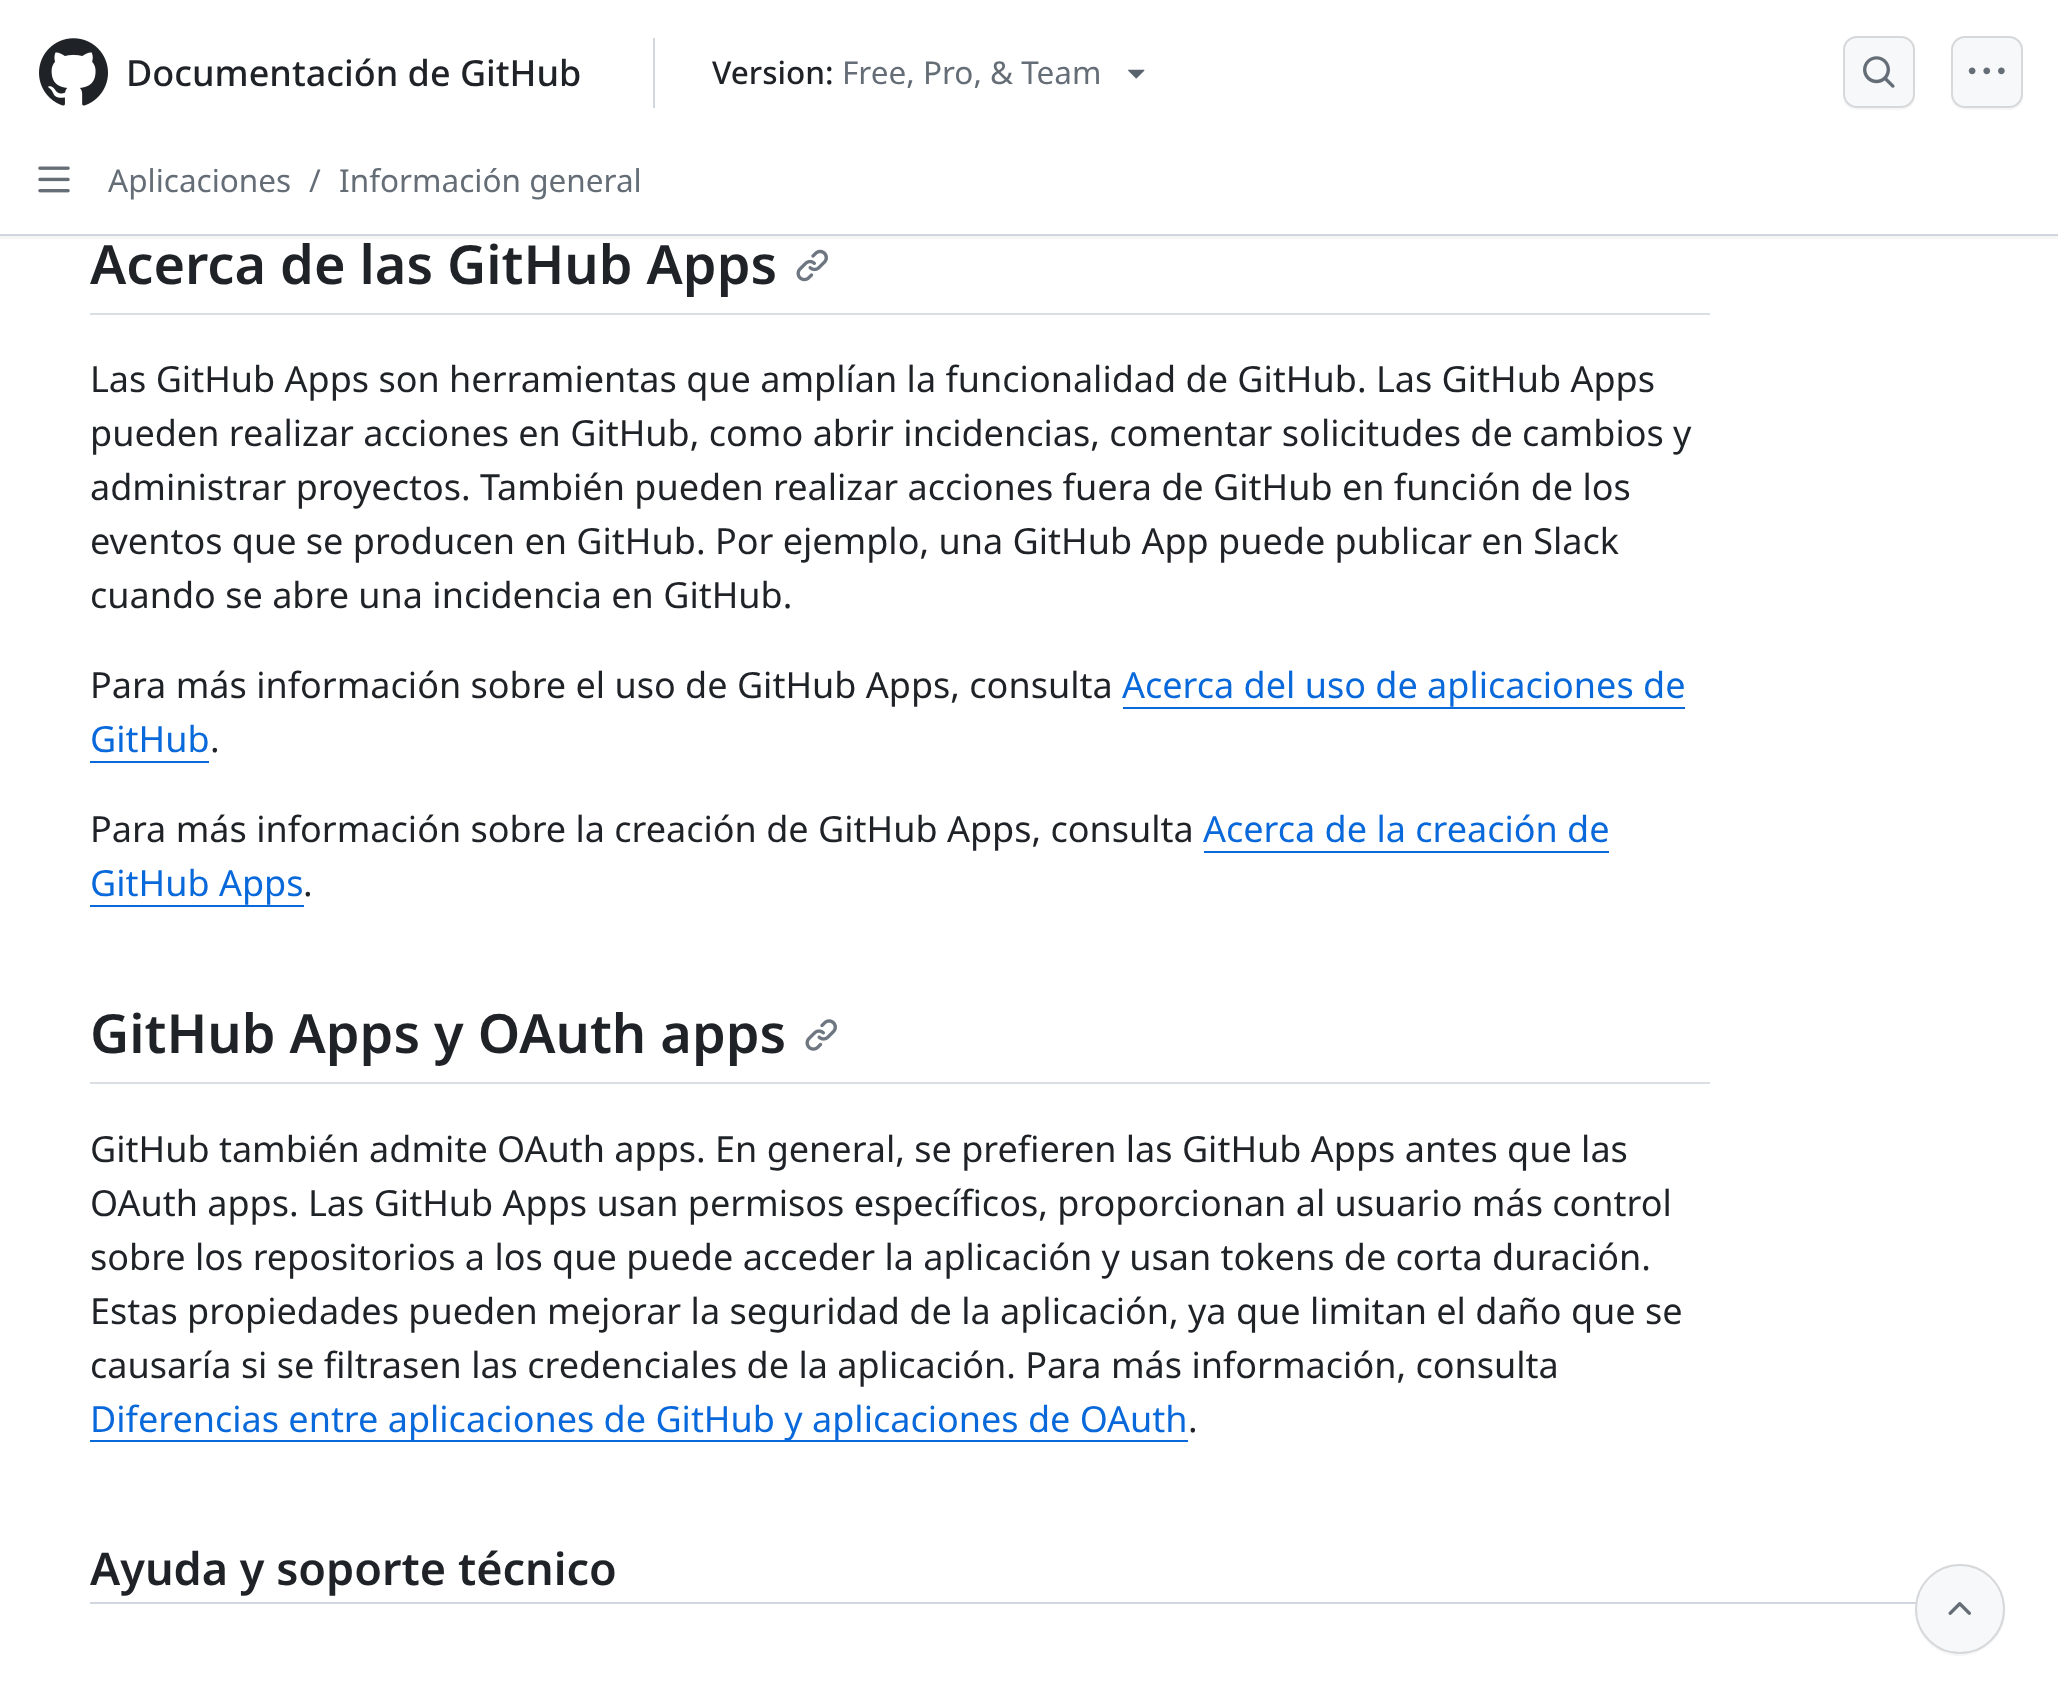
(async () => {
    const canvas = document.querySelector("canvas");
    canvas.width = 2058;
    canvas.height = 1706;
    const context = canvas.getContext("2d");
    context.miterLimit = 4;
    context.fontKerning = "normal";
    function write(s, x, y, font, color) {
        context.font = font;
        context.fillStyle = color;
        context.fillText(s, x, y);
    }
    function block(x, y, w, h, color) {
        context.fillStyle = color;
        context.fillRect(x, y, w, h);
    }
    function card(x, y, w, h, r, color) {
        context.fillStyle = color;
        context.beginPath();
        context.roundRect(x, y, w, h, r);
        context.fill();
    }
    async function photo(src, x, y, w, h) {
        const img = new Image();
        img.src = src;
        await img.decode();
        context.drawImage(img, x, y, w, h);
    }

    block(0, 0, 2058, 1706, "rgb(255, 255, 255)");
    context.fillStyle = "rgb(246, 246, 246)";
    context.beginPath();
    context.moveTo(0, 236);
    context.lineTo(0, 239);
    context.lineTo(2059, 239);
    context.lineTo(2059, 2);
    context.lineTo(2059, 236);
    context.closePath();
    context.fill();
    block(0, 234, 2058, 2, "rgb(208, 215, 222)");
    await photo("media/1.png", 39, 38, 69, 68);
    write("Documentación de GitHub", 126, 86, "500 36px Noto Sans", "rgb(31, 35, 40)");
    block(653, 38, 2, 70, "rgb(208, 215, 222)");
    write("Version:", 712, 84, "500 31.5px Noto Sans", "rgb(31, 35, 40)");
    write("Free, Pro, & Team", 842, 84, "31.5px Noto Sans", "rgb(101, 109, 118)");
    await photo("media/2.png", 1128, 69, 17, 10);
    context.fillStyle = "rgb(246, 246, 246)";
    context.beginPath();
    context.moveTo(1843, 97);
    context.bezierCurveTo(1844, 110, 1855, 110, 1864, 110);
    context.lineTo(1886, 110);
    context.bezierCurveTo(1897, 110, 1912, 113, 1915, 99);
    context.lineTo(1915, 49);
    context.lineTo(1915, 94);
    context.bezierCurveTo(1915, 102, 1909, 108, 1901, 108);
    context.lineTo(1856, 108);
    context.bezierCurveTo(1850, 108, 1844, 103, 1843, 97);
    context.closePath();
    context.fill();
    card(1843, 36, 72, 72, 14, "rgb(246, 248, 250)");
    context.beginPath();
    context.roundRect(1844, 37, 70, 70, 13);
    context.strokeStyle = "rgba(31, 35, 40, 0.15)";
    context.lineWidth = 2;
    context.stroke();
    await photo("media/3.png", 1863, 56, 32, 32);
    context.fillStyle = "rgb(246, 246, 246)";
    context.beginPath();
    context.moveTo(1951, 97);
    context.bezierCurveTo(1952, 110, 1963, 110, 1972, 110);
    context.lineTo(1994, 110);
    context.bezierCurveTo(2005, 110, 2020, 113, 2023, 99);
    context.lineTo(2023, 49);
    context.lineTo(2023, 94);
    context.bezierCurveTo(2023, 102, 2017, 108, 2009, 108);
    context.lineTo(1964, 108);
    context.bezierCurveTo(1958, 108, 1952, 103, 1951, 97);
    context.closePath();
    context.fill();
    card(1951, 36, 72, 72, 14, "rgb(246, 248, 250)");
    context.beginPath();
    context.roundRect(1952, 37, 70, 70, 13);
    context.stroke();
    await photo("media/4.png", 1968, 67, 37, 8);
    await photo("media/5.png", 38, 166, 32, 27);
    write("Aplicaciones", 108, 192, "31.5px Noto Sans", "rgb(101, 109, 118)");
    write("/", 309, 192, "31.5px Noto Sans", "rgb(101, 109, 118)");
    write("Información general", 339, 192, "31.5px Noto Sans", "rgb(101, 109, 118)");
    block(90, 313, 1620, 2, "rgb(216, 222, 228)");
    write("Acerca de las GitHub Apps", 90, 284, "600 54px Noto Sans", "rgb(31, 35, 40)");
    await photo("media/6.png", 796, 249, 32, 33);
    write("Las GitHub Apps son herramientas que amplían la funcionalidad de GitHub. Las GitHub Apps", 90, 392, "36px Noto Sans", "rgb(31, 35, 40)");
    write("pueden realizar acciones en GitHub, como abrir incidencias, comentar solicitudes de cambios y", 90, 446, "36px Noto Sans", "rgb(31, 35, 40)");
    write("administrar proyectos. También pueden realizar acciones fuera de GitHub en función de los", 90, 500, "36px Noto Sans", "rgb(31, 35, 40)");
    write("eventos que se producen en GitHub. Por ejemplo, una GitHub App puede publicar en Slack", 90, 554, "36px Noto Sans", "rgb(31, 35, 40)");
    write("cuando se abre una incidencia en GitHub.", 90, 608, "36px Noto Sans", "rgb(31, 35, 40)");
    write("Para más información sobre el uso de GitHub Apps, consulta", 90, 698, "36px Noto Sans", "rgb(31, 35, 40)");
    write("Acerca del uso de aplicaciones de", 1122, 698, "36px Noto Sans", "rgb(9, 105, 218)");
    block(1123, 707, 562, 2, "rgb(9, 105, 218)");
    write("GitHub", 90, 752, "36px Noto Sans", "rgb(9, 105, 218)");
    block(90, 761, 119, 2, "rgb(9, 105, 218)");
    write(".", 210, 752, "36px Noto Sans", "rgb(31, 35, 40)");
    write("Para más información sobre la creación de GitHub Apps, consulta", 90, 842, "36px Noto Sans", "rgb(31, 35, 40)");
    write("Acerca de la creación de", 1203, 842, "36px Noto Sans", "rgb(9, 105, 218)");
    block(1204, 851, 405, 2, "rgb(9, 105, 218)");
    write("GitHub Apps", 90, 896, "36px Noto Sans", "rgb(9, 105, 218)");
    block(90, 905, 214, 2, "rgb(9, 105, 218)");
    write(".", 303, 896, "36px Noto Sans", "rgb(31, 35, 40)");
    block(90, 1082, 1620, 2, "rgb(216, 222, 228)");
    write("GitHub Apps y OAuth apps", 90, 1053, "600 54px Noto Sans", "rgb(31, 35, 40)");
    await photo("media/7.png", 805, 1019, 32, 32);
    write("GitHub también admite OAuth apps. En general, se prefieren las GitHub Apps antes que las", 90, 1162, "36px Noto Sans", "rgb(31, 35, 40)");
    write("OAuth apps. Las GitHub Apps usan permisos específicos, proporcionan al usuario más control", 90, 1216, "36px Noto Sans", "rgb(31, 35, 40)");
    write("sobre los repositorios a los que puede acceder la aplicación y usan tokens de corta duración.", 90, 1270, "36px Noto Sans", "rgb(31, 35, 40)");
    write("Estas propiedades pueden mejorar la seguridad de la aplicación, ya que limitan el daño que se", 90, 1324, "36px Noto Sans", "rgb(31, 35, 40)");
    write("causaría si se filtrasen las credenciales de la aplicación. Para más información, consulta", 90, 1378, "36px Noto Sans", "rgb(31, 35, 40)");
    block(90, 1440, 1098, 2, "rgb(9, 105, 218)");
    write("Diferencias entre aplicaciones de GitHub y aplicaciones de OAuth", 90, 1432, "36px Noto Sans", "rgb(9, 105, 218)");
    write(".", 1188, 1432, "36px Noto Sans", "rgb(31, 35, 40)");
    write("Ayuda y soporte técnico", 90, 1585, "600 45px Noto Sans", "rgb(31, 35, 40)");
    block(90, 1602, 1826, 2, "rgb(208, 215, 222)");
    context.fillStyle = "rgb(246, 246, 246)";
    context.beginPath();
    context.moveTo(1915, 1615);
    context.bezierCurveTo(1916, 1623, 1919, 1631, 1924, 1638);
    context.bezierCurveTo(1952, 1675, 2011, 1650, 2005, 1605);
    context.bezierCurveTo(2005, 1615, 2003, 1625, 1997, 1634);
    context.bezierCurveTo(1974, 1668, 1921, 1655, 1915, 1615);
    context.closePath();
    context.fill();
    context.fillStyle = "rgb(246, 248, 250)";
    context.beginPath();
    context.arc(1960, 1609, 45, 0, Math.PI * 2);
    context.fill();
    context.beginPath();
    context.arc(1960, 1609, 44, 0, Math.PI * 2);
    context.stroke();
    await photo("media/8.png", 1948, 1602, 23, 13);
})();
